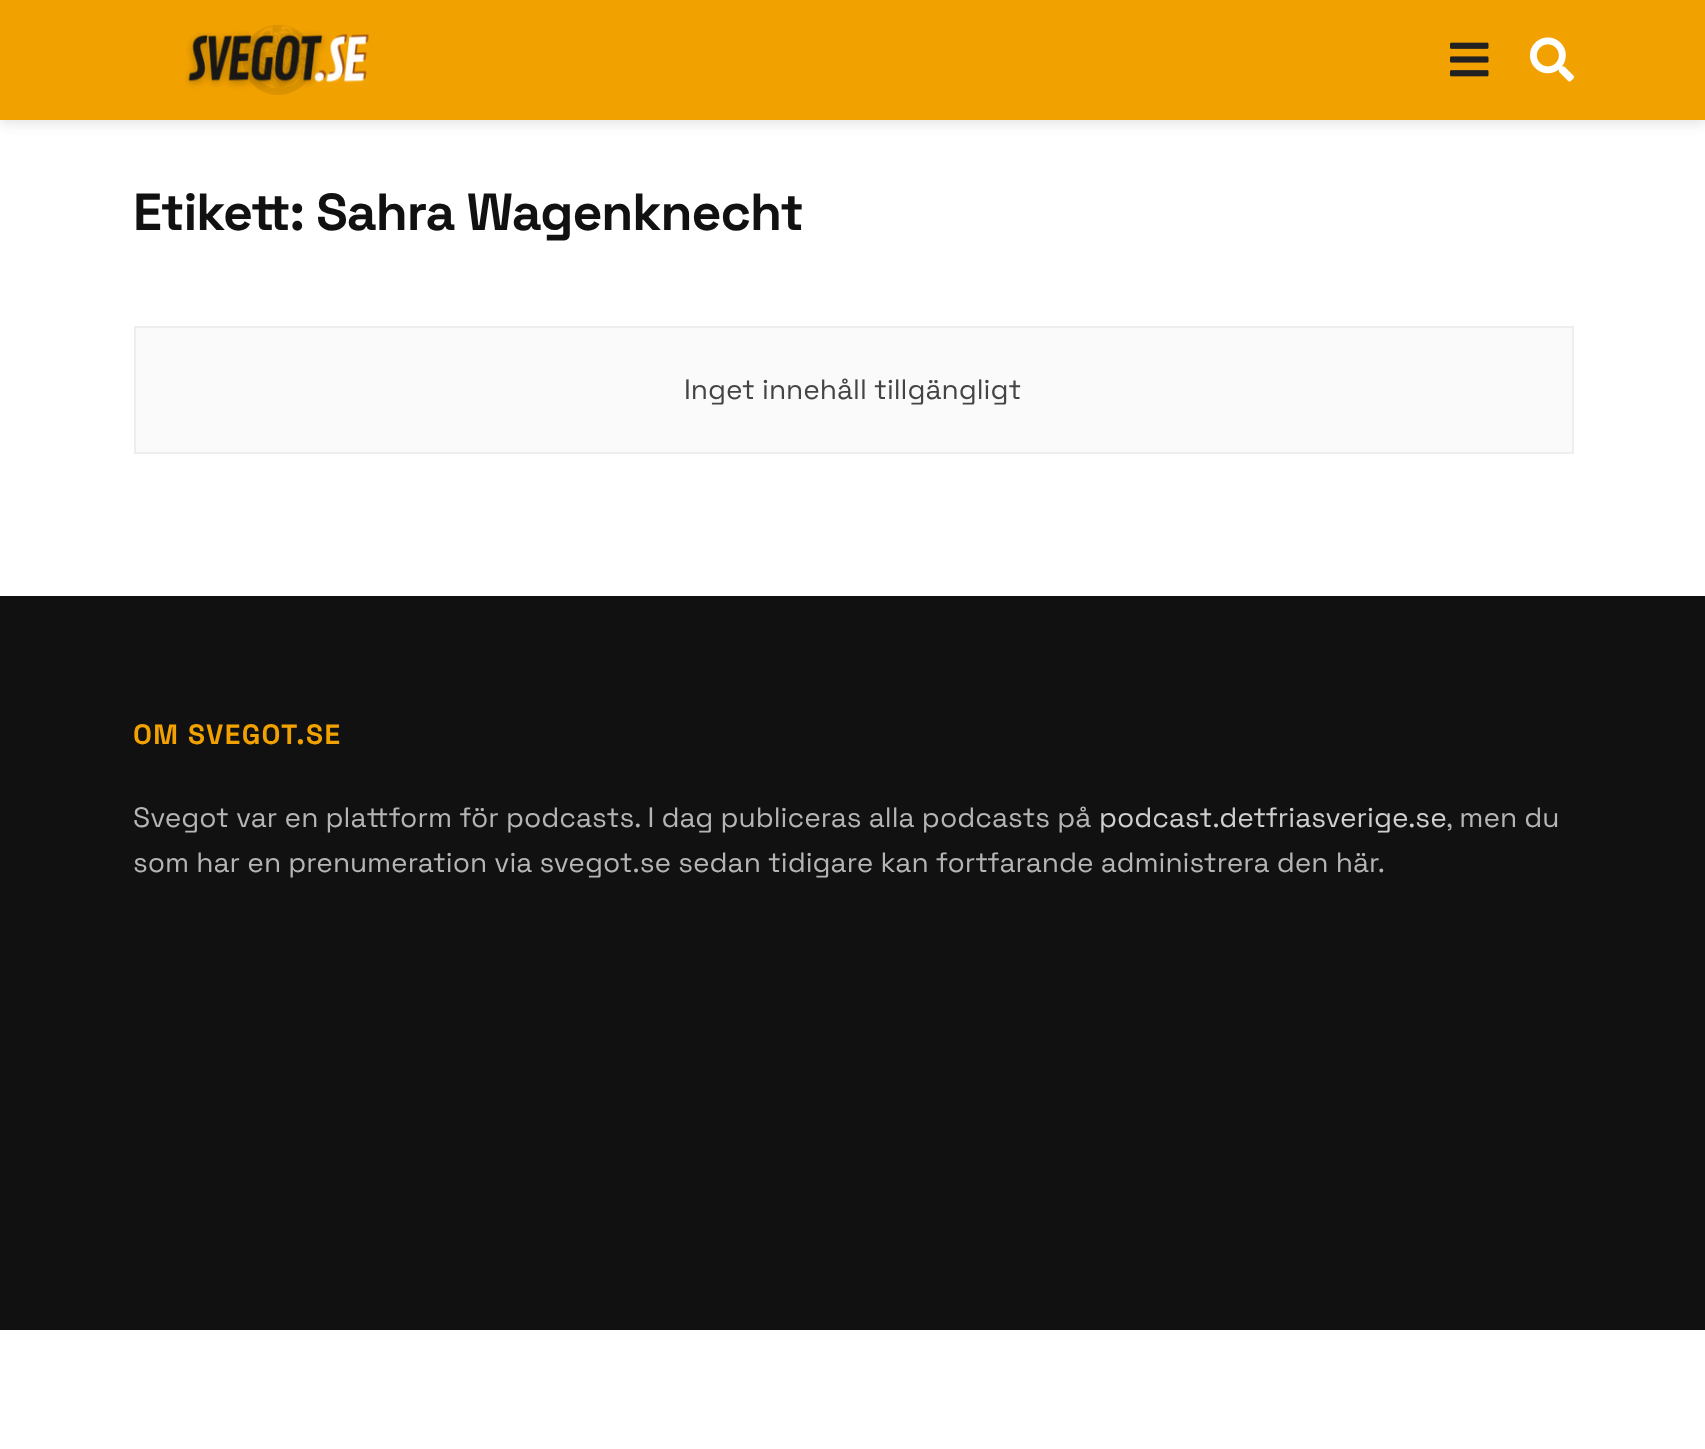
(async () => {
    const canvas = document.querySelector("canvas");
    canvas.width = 1705;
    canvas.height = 1449;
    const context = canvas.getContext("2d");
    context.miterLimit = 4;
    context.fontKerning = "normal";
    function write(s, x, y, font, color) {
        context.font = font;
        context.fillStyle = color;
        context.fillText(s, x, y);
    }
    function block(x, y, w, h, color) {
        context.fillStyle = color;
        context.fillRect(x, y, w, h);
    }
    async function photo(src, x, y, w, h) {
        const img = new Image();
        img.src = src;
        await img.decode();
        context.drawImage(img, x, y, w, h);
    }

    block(0, 0, 1705, 1449, "rgb(255, 255, 255)");
    context.fillStyle = "rgba(0, 0, 0, 0.1)";
    context.filter = "blur(6px)";
    context.beginPath();
    context.rect(0, 4, 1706, 120);
    context.fill();
    context.filter = "none";
    block(0, 0, 1705, 120, "rgb(242, 162, 0)");
    await photo("media/1.png", 185, 24, 184, 71);
    await photo("media/2.png", 1450, 42, 39, 35);
    await photo("media/3.png", 1530, 37, 44, 45);
    context.letterSpacing = "-1.05px";
    write("Etikett: Sahra Wagenknecht", 133, 230, "bold 52px Space Grotesk", "rgb(17, 17, 17)");
    context.fillStyle = "rgb(250, 250, 250)";
    context.beginPath();
    context.rect(135, 327, 1438, 126);
    context.fill();
    context.strokeStyle = "rgb(238, 238, 238)";
    context.lineWidth = 2;
    context.stroke();
    context.letterSpacing = "0px";
    write("Inget innehåll tillgängligt", 684, 399, "28px Space Grotesk", "rgb(68, 68, 68)");
    block(0, 596, 1705, 734, "rgb(17, 17, 17)");
    context.letterSpacing = "1.4px";
    write("OM SVEGOT.SE", 133, 744, "bold 28px Space Grotesk", "rgb(242, 162, 0)");
    context.letterSpacing = "0px";
    write("Svegot var en plattform för podcasts. I dag publiceras alla podcasts på", 133, 827, "28px Space Grotesk", "rgb(181, 181, 181)");
    write("podcast.detfriasverige.se", 1099, 827, "28px Space Grotesk", "rgb(207, 207, 207)");
    write(", men du", 1446, 827, "28px Space Grotesk", "rgb(181, 181, 181)");
    write("som har en prenumeration via svegot.se sedan tidigare kan fortfarande administrera den här.", 133, 872, "28px Space Grotesk", "rgb(181, 181, 181)");
})();
